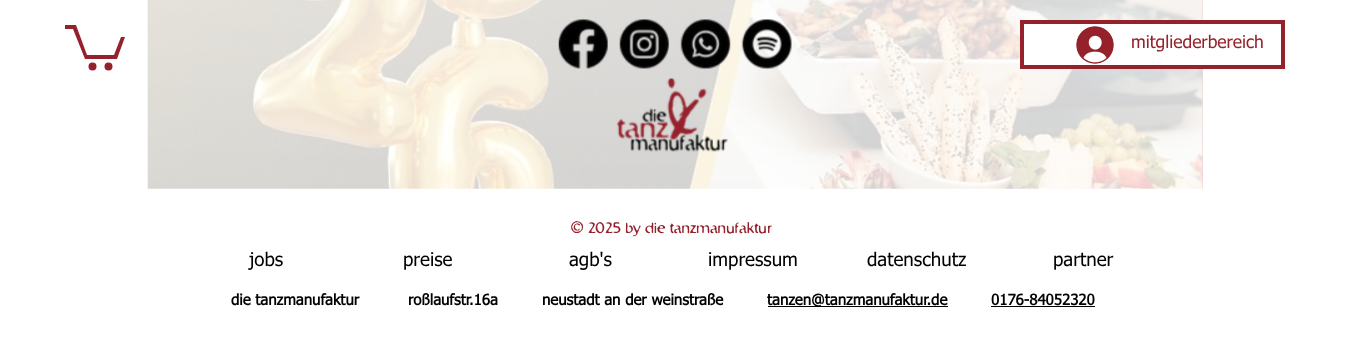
(async () => {
    const canvas = document.querySelector("canvas");
    canvas.width = 1350;
    canvas.height = 340;
    const context = canvas.getContext("2d");
    context.miterLimit = 4;
    context.fontKerning = "normal";
    function write(s, x, y, font, color) {
        context.font = font;
        context.fillStyle = color;
        context.fillText(s, x, y);
    }
    function block(x, y, w, h, color) {
        context.fillStyle = color;
        context.fillRect(x, y, w, h);
    }
    async function photo(src, x, y, w, h) {
        const img = new Image();
        img.src = src;
        await img.decode();
        context.drawImage(img, x, y, w, h);
    }

    block(0, 0, 1350, 340, "rgb(255, 255, 255)");
    block(1202, 0, 1, 189, "rgb(149, 33, 43)");
    await photo("media/1.png", 147, 0, 1056, 189);
    block(147, 0, 1056, 189, "rgba(255, 255, 255, 0.8)");
    await photo("media/2.png", 148, 0, 1055, 189);
    context.fillStyle = "rgb(149, 33, 43)";
    context.beginPath();
    context.moveTo(125, 37);
    context.lineTo(117, 59);
    context.lineTo(85, 59);
    context.lineTo(73, 29);
    context.lineTo(65, 29);
    context.lineTo(65, 25);
    context.lineTo(76, 25);
    context.lineTo(87, 55);
    context.lineTo(114, 55);
    context.lineTo(121, 37);
    context.fill();
    context.beginPath();
    context.arc(108.5, 66.5, 4, 0, Math.PI * 2);
    context.fill();
    context.beginPath();
    context.arc(92.5, 66.5, 4, 0, Math.PI * 2);
    context.fill();
    await photo("media/3.png", 558, 19, 50, 50);
    await photo("media/4.png", 619, 19, 50, 50);
    await photo("media/5.png", 680, 19, 51, 50);
    await photo("media/6.png", 741, 19, 51, 50);
    block(1024, 24, 179, 41, "rgb(255, 255, 255)");
    context.strokeStyle = "rgb(149, 33, 43)";
    context.lineWidth = 4;
    context.strokeRect(1022, 22, 261, 45);
    await photo("media/7.png", 1076, 26, 38, 38);
    write("mitgliederbereich", 1131, 48, "17.5px tahoma", "rgb(149, 33, 43)");
    await photo("media/8.png", 616, 78, 112, 74);
    block(148, 188, 1055, 1, "rgba(255, 255, 255, 0.26)");
    write("© 2025 by die tanzmanufaktur", 571, 233, "16.25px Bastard", "rgb(149, 33, 43)");
    write("jobs", 249, 266, "18.75px tahoma", "rgb(0, 0, 0)");
    write("preise", 403, 266, "18.75px tahoma", "rgb(0, 0, 0)");
    write("agb's", 569, 266, "18.75px tahoma", "rgb(0, 0, 0)");
    write("impressum", 708, 266, "18.75px tahoma", "rgb(0, 0, 0)");
    write("datenschutz", 867, 266, "18.75px tahoma", "rgb(0, 0, 0)");
    write("partner", 1053, 266, "18.75px tahoma", "rgb(0, 0, 0)");
    write("die tanzmanufaktur", 231, 305, "bold 15px tahoma", "rgb(0, 0, 0)");
    write("roßlaufstr.16a", 408, 305, "bold 15px tahoma", "rgb(0, 0, 0)");
    write("neustadt an der weinstraße", 542, 305, "bold 15px tahoma", "rgb(0, 0, 0)");
    block(768, 306, 180, 1, "rgb(0, 0, 0)");
    write("tanzen@tanzmanufaktur.de", 767, 305, "bold 15px tahoma", "rgb(0, 0, 0)");
    write("0176-84052320", 991, 305, "bold 15px tahoma", "rgb(0, 0, 0)");
    block(991, 306, 104, 1, "rgb(0, 0, 0)");
})();
